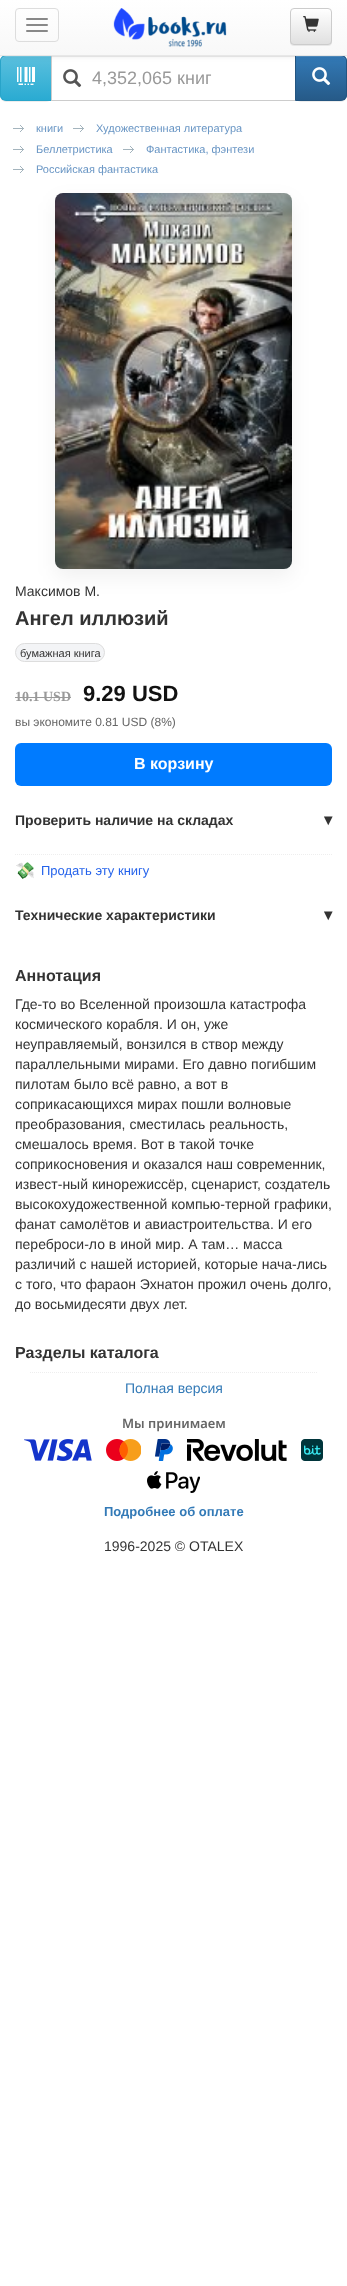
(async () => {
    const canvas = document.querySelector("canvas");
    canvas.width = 347;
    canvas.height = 2286;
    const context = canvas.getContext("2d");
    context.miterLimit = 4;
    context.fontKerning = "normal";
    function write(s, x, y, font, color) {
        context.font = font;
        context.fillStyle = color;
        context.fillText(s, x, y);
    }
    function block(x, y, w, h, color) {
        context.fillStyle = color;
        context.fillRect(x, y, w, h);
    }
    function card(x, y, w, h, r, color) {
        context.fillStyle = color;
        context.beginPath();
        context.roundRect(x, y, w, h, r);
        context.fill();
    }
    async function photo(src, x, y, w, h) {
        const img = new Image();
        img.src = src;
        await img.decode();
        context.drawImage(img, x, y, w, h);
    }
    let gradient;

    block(0, 0, 347, 2286, "rgb(255, 255, 255)");
    context.fillStyle = "rgba(0, 0, 0, 0.07)";
    context.filter = "blur(0.5px)";
    context.beginPath();
    context.roundRect(0, 56, 52, 46, 6);
    context.fill();
    context.filter = "none";
    context.save();
    context.beginPath();
    context.roundRect(0, 55, 52, 46, [6, 0, 0, 6]);
    context.clip();
    gradient = context.createLinearGradient(26, 56, 26, 100);
    gradient.addColorStop(0, "rgb(91, 192, 222)");
    gradient.addColorStop(1, "rgb(42, 171, 210)");
    context.fillStyle = gradient;
    context.fillRect(0, 56, 51, 44);
    context.restore();
    context.fillStyle = "rgb(115, 201, 227)";
    context.beginPath();
    context.moveTo(6, 57);
    context.lineTo(51, 57);
    context.lineTo(51, 56);
    context.lineTo(6, 56);
    context.bezierCurveTo(3, 56, 1, 58, 1, 61);
    context.lineTo(1, 62);
    context.bezierCurveTo(1, 59, 3, 57, 6, 57);
    context.closePath();
    context.fill();
    context.beginPath();
    context.roundRect(0.5, 55.5, 51, 45, [5.5, 0, 0, 5.5]);
    context.strokeStyle = "rgb(40, 164, 201)";
    context.stroke();
    block(52, 56, 243, 1, "rgb(236, 236, 236)");
    context.strokeStyle = "rgb(204, 204, 204)";
    context.strokeRect(51.5, 55.5, 244, 45);
    context.fillStyle = "rgba(0, 0, 0, 0.07)";
    context.filter = "blur(0.5px)";
    context.beginPath();
    context.roundRect(295, 56, 52, 46, 6);
    context.fill();
    context.filter = "none";
    context.save();
    context.beginPath();
    context.roundRect(295, 55, 52, 46, [0, 6, 6, 0]);
    context.clip();
    gradient = context.createLinearGradient(321, 56, 321, 100);
    gradient.addColorStop(0, "rgb(51, 122, 183)");
    gradient.addColorStop(1, "rgb(38, 90, 136)");
    context.fillStyle = gradient;
    context.fillRect(296, 56, 51, 44);
    context.restore();
    context.fillStyle = "rgb(82, 142, 193)";
    context.beginPath();
    context.moveTo(296, 57);
    context.lineTo(341, 57);
    context.bezierCurveTo(344, 57, 346, 59, 346, 62);
    context.lineTo(346, 61);
    context.bezierCurveTo(346, 58, 344, 56, 341, 56);
    context.lineTo(296, 56);
    context.closePath();
    context.fill();
    context.beginPath();
    context.roundRect(295.5, 55.5, 51, 45, [0, 5.5, 5.5, 0]);
    context.strokeStyle = "rgb(36, 85, 128)";
    context.stroke();
    context.fillStyle = "rgba(0, 0, 0, 0.07)";
    context.filter = "blur(2.5px)";
    context.beginPath();
    context.rect(0, 1, 347, 56);
    context.fill();
    context.filter = "none";
    gradient = context.createLinearGradient(174, 0, 174, 55);
    gradient.addColorStop(0, "rgb(255, 255, 255)");
    gradient.addColorStop(1, "rgb(248, 248, 248)");
    context.fillStyle = gradient;
    context.fillRect(0, 0, 347, 55);
    block(0, 55, 347, 1, "rgb(231, 231, 231)");
    context.beginPath();
    context.roundRect(15.5, 8.5, 43, 33, 3.5);
    context.strokeStyle = "rgb(221, 221, 221)";
    context.stroke();
    card(26, 18, 22, 2, 1, "rgb(136, 136, 136)");
    card(26, 24, 22, 2, 1, "rgb(136, 136, 136)");
    card(26, 30, 22, 2, 1, "rgb(136, 136, 136)");
    await photo("media/1.png", 113, 8, 114, 39);
    context.fillStyle = "rgba(0, 0, 0, 0.07)";
    context.filter = "blur(0.5px)";
    context.beginPath();
    context.roundRect(290, 9, 42, 37, 4);
    context.fill();
    context.filter = "none";
    context.save();
    context.beginPath();
    context.roundRect(290, 8, 42, 37, 4);
    context.clip();
    gradient = context.createLinearGradient(311, 9, 311, 44);
    gradient.addColorStop(0, "rgb(255, 255, 255)");
    gradient.addColorStop(1, "rgb(224, 224, 224)");
    context.fillStyle = gradient;
    context.fillRect(290, 9, 42, 35);
    context.restore();
    context.beginPath();
    context.roundRect(290.5, 8.5, 41, 36, 3.5);
    context.strokeStyle = "rgb(204, 204, 204)";
    context.stroke();
    await photo("media/2.png", 303, 16, 16, 16);
    await photo("media/3.png", 17, 67, 18, 18);
    await photo("media/4.png", 63, 69, 19, 19);
    write("4,352,065 книг", 92, 84, "18px Liberation Sans", "rgb(153, 153, 153)");
    await photo("media/5.png", 312, 67, 19, 19);
    await photo("media/6.png", 13, 125, 11, 7);
    write("книги", 36, 132, "11px Liberation Sans", "rgb(104, 149, 196)");
    await photo("media/6.png", 73, 125, 11, 7);
    write("Художественная литература", 96, 132, "11px Liberation Sans", "rgb(104, 149, 196)");
    await photo("media/6.png", 13, 146, 11, 7);
    write("Беллетристика", 36, 153, "11px Liberation Sans", "rgb(104, 149, 196)");
    await photo("media/6.png", 123, 146, 11, 7);
    write("Фантастика, фэнтези", 146, 153, "11px Liberation Sans", "rgb(104, 149, 196)");
    await photo("media/6.png", 13, 166, 11, 7);
    context.fillStyle = "rgba(0, 0, 0, 0.06)";
    context.filter = "blur(10px)";
    context.beginPath();
    context.roundRect(55, 201, 237, 376, 8);
    context.fill();
    context.filter = "none";
    write("Российская фантастика", 36, 173, "11px Liberation Sans", "rgb(104, 149, 196)");
    await photo("media/7.png", 55, 193, 237, 376);
    write("Максимов М.", 15, 596, "14px Liberation Sans", "rgb(51, 51, 51)");
    write("Ангел иллюзий", 15, 625, "bold 20px Liberation Sans", "rgb(51, 51, 51)");
    context.fillStyle = "rgb(243, 244, 246)";
    context.beginPath();
    context.roundRect(15.5, 643.5, 89, 18, 9);
    context.fill();
    context.strokeStyle = "rgb(221, 221, 221)";
    context.stroke();
    write("бумажная книга", 20, 657, "11px Liberation Sans", "rgb(51, 51, 51)");
    write("10.1 USD", 15, 701, "bold 14px Liberation Serif", "rgb(153, 153, 153)");
    block(15, 697, 56, 1, "rgb(153, 153, 153)");
    write("9.29 USD", 83, 701, "bold 22px Liberation Sans", "rgb(17, 17, 17)");
    write("вы экономите 0.81 USD (8%)", 15, 726, "12px Liberation Sans", "rgb(102, 102, 102)");
    card(15, 743, 317, 43, 6, "rgb(0, 123, 255)");
    write("В корзину", 134, 769, "bold 16px Liberation Sans", "rgb(255, 255, 255)");
    write("Проверить наличие на складах", 15, 825, "bold 14px Liberation Sans", "rgb(51, 51, 51)");
    write("▾", 324, 825, "bold 16px DejaVu Sans", "rgb(51, 51, 51)");
    context.beginPath();
    context.moveTo(15, 854.5);
    context.lineTo(332, 854.5);
    context.strokeStyle = "rgb(238, 238, 238)";
    context.setLineDash([1, 1]);
    context.stroke();
    write("💸", 15, 876, "16px Noto Color Emoji", "rgb(37, 99, 235)");
    write("Продать эту книгу", 41, 875, "13px Liberation Sans", "rgb(37, 99, 235)");
    write("Технические характеристики", 15, 920, "bold 14px Liberation Sans", "rgb(51, 51, 51)");
    write("▾", 324, 920, "bold 16px DejaVu Sans", "rgb(51, 51, 51)");
    write("Аннотация", 15, 981, "bold 16px Liberation Sans", "rgb(51, 51, 51)");
    write("Где-то во Вселенной произошла катастрофа", 15, 1009, "14px Liberation Sans", "rgb(51, 51, 51)");
    write("космического корабля. И он, уже", 15, 1029, "14px Liberation Sans", "rgb(51, 51, 51)");
    write("неуправляемый, вонзился в створ между", 15, 1049, "14px Liberation Sans", "rgb(51, 51, 51)");
    write("параллельными мирами. Его давно погибшим", 15, 1069, "14px Liberation Sans", "rgb(51, 51, 51)");
    write("пилотам было всё равно, а вот в", 15, 1089, "14px Liberation Sans", "rgb(51, 51, 51)");
    write("соприкасающихся мирах пошли волновые", 15, 1109, "14px Liberation Sans", "rgb(51, 51, 51)");
    write("преобразования, сместилась реальность,", 15, 1129, "14px Liberation Sans", "rgb(51, 51, 51)");
    write("смешалось время. Вот в такой точке", 15, 1149, "14px Liberation Sans", "rgb(51, 51, 51)");
    write("соприкосновения и оказался наш современник,", 15, 1169, "14px Liberation Sans", "rgb(51, 51, 51)");
    write("извест-ный кинорежиссёр, сценарист, создатель", 15, 1189, "14px Liberation Sans", "rgb(51, 51, 51)");
    write("высокохудожественной компью-терной графики,", 15, 1209, "14px Liberation Sans", "rgb(51, 51, 51)");
    write("фанат самолётов и авиастроительства. И его", 15, 1229, "14px Liberation Sans", "rgb(51, 51, 51)");
    write("переброси-ло в иной мир. А там… масса", 15, 1249, "14px Liberation Sans", "rgb(51, 51, 51)");
    write("различий с нашей историей, которые нача-лись", 15, 1269, "14px Liberation Sans", "rgb(51, 51, 51)");
    write("с того, что фараон Эхнатон прожил очень долго,", 15, 1289, "14px Liberation Sans", "rgb(51, 51, 51)");
    write("до восьмидесяти двух лет.", 15, 1309, "14px Liberation Sans", "rgb(51, 51, 51)");
    write("Разделы каталога", 15, 1358, "bold 16px Liberation Sans", "rgb(51, 51, 51)");
    context.beginPath();
    context.moveTo(30, 1372.5);
    context.lineTo(317, 1372.5);
    context.stroke();
    write("Полная версия", 125, 1393, "14px Liberation Sans", "rgb(51, 122, 183)");
    write("Мы принимаем", 122, 1428, "600 13px Noto Sans", "rgb(102, 102, 102)");
    await photo("media/8.png", 24, 1439, 68, 22);
    await photo("media/9.png", 106, 1439, 35, 22);
    await photo("media/10.png", 155, 1439, 18, 22);
    await photo("media/11.png", 187, 1439, 100, 22);
    await photo("media/12.png", 301, 1439, 22, 22);
    await photo("media/13.png", 147, 1471, 53, 22);
    write("Подробнее об оплате", 104, 1516, "bold 13px Liberation Sans", "rgb(51, 122, 183)");
    write("1996-2025 © OTALEX", 104, 1551, "14px Liberation Sans", "rgb(51, 51, 51)");
})();
